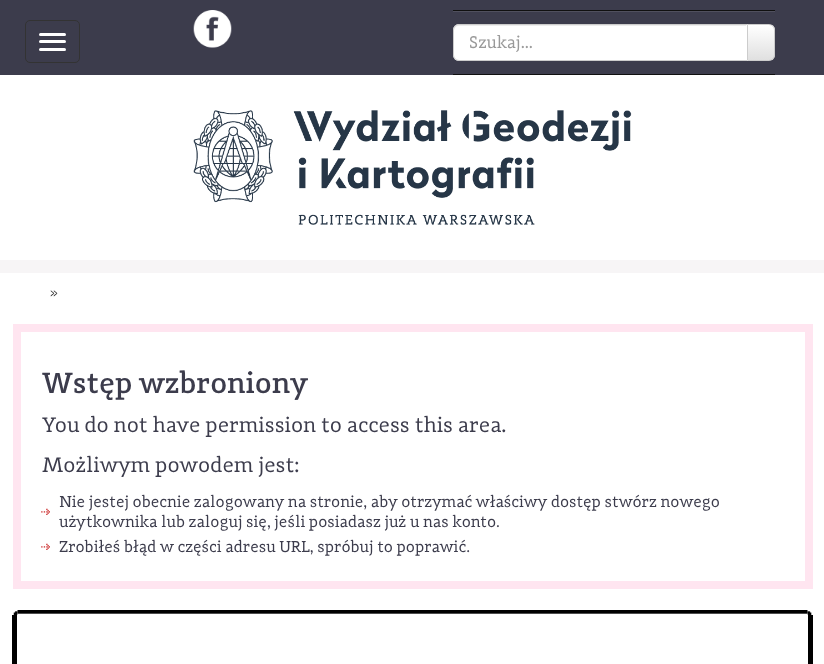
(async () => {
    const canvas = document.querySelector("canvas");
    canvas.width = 824;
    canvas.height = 664;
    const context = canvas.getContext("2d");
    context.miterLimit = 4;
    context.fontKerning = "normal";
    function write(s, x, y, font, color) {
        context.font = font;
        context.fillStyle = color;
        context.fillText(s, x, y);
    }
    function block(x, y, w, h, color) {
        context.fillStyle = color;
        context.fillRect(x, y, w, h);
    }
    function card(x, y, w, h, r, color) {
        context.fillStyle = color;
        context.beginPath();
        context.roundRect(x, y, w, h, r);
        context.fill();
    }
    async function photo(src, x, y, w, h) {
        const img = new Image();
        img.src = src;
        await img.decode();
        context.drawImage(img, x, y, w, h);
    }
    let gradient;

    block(0, 0, 824, 664, "rgb(247, 245, 246)");
    block(0, 0, 824, 75, "rgb(60, 60, 76)");
    context.beginPath();
    context.roundRect(25.5, 20.5, 54, 42, 4.5);
    context.strokeStyle = "rgb(51, 51, 51)";
    context.stroke();
    card(39, 33, 27, 3, 1.5, "rgb(255, 255, 255)");
    card(39, 40, 27, 3, 1.5, "rgb(255, 255, 255)");
    card(39, 48, 27, 3, 1.5, "rgb(255, 255, 255)");
    await photo("media/1.png", 193, 10, 39, 38);
    block(453, 11, 322, 1, "rgb(80, 80, 94)");
    block(453, 10, 322, 1, "rgb(16, 16, 16)");
    block(453, 74, 322, 1, "rgb(16, 16, 16)");
    context.save();
    context.beginPath();
    context.roundRect(746, 24, 29, 37, [0, 6, 6, 0]);
    context.clip();
    gradient = context.createLinearGradient(761, 25, 761, 60);
    gradient.addColorStop(0, "rgb(255, 255, 255)");
    gradient.addColorStop(1, "rgb(224, 224, 224)");
    context.fillStyle = gradient;
    context.fillRect(748, 25, 27, 35);
    context.restore();
    context.beginPath();
    context.roundRect(746.5, 24.5, 28, 36, [0, 5.5, 5.5, 0]);
    context.strokeStyle = "rgb(204, 204, 204)";
    context.stroke();
    context.fillStyle = "rgb(255, 255, 255)";
    context.beginPath();
    context.roundRect(453, 24, 295, 37, [6, 0, 0, 6]);
    context.fill();
    context.fillStyle = "rgb(236, 236, 236)";
    context.beginPath();
    context.moveTo(459, 26);
    context.lineTo(746, 26);
    context.lineTo(746, 25);
    context.lineTo(459, 25);
    context.bezierCurveTo(456, 25, 454, 27, 454, 30);
    context.lineTo(454, 31);
    context.bezierCurveTo(454, 28, 456, 26, 459, 26);
    context.closePath();
    context.fill();
    context.beginPath();
    context.roundRect(453.5, 24.5, 294, 36, [5.5, 0, 0, 5.5]);
    context.stroke();
    write("Szukaj...", 469, 48, "17.5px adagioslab", "rgb(153, 153, 153)");
    block(0, 75, 824, 185, "rgb(255, 255, 255)");
    await photo("media/2.png", 193, 110, 439, 115);
    block(0, 273, 824, 391, "rgb(255, 255, 255)");
    write("»", 50, 297, "14px adagioslab", "rgb(51, 51, 51)");
    context.strokeStyle = "rgb(255, 229, 240)";
    context.lineWidth = 8;
    context.strokeRect(17, 328, 792, 257);
    write("Wstęp wzbroniony", 42, 393, "500 30.25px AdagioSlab", "rgb(60, 60, 76)");
    write("You do not have permission to access this area.", 42, 432, "21.7px adagioslab", "rgb(60, 60, 76)");
    write("Możliwym powodem jest:", 42, 472, "21.7px adagioslab", "rgb(60, 60, 76)");
    await photo("media/3.png", 41, 508, 9, 7);
    write("Nie jestej obecnie zalogowany na stronie, aby otrzymać właściwy dostęp stwórz nowego", 59, 507, "16.3px adagioslab", "rgb(60, 60, 76)");
    write("użytkownika lub zaloguj się, jeśli posiadasz już u nas konto.", 59, 527, "16.3px adagioslab", "rgb(60, 60, 76)");
    await photo("media/3.png", 41, 543, 9, 7);
    write("Zrobiłeś błąd w części adresu URL, spróbuj to poprawić.", 59, 552, "16.3px adagioslab", "rgb(60, 60, 76)");
    await photo("media/4.png", 13, 611, 5, 4);
    await photo("media/5.png", 807, 611, 5, 4);
    await photo("media/6.png", 17, 610, 791, 5);
    block(12, 615, 5, 49, "rgb(0, 0, 0)");
    block(808, 615, 5, 49, "rgb(0, 0, 0)");
})();
